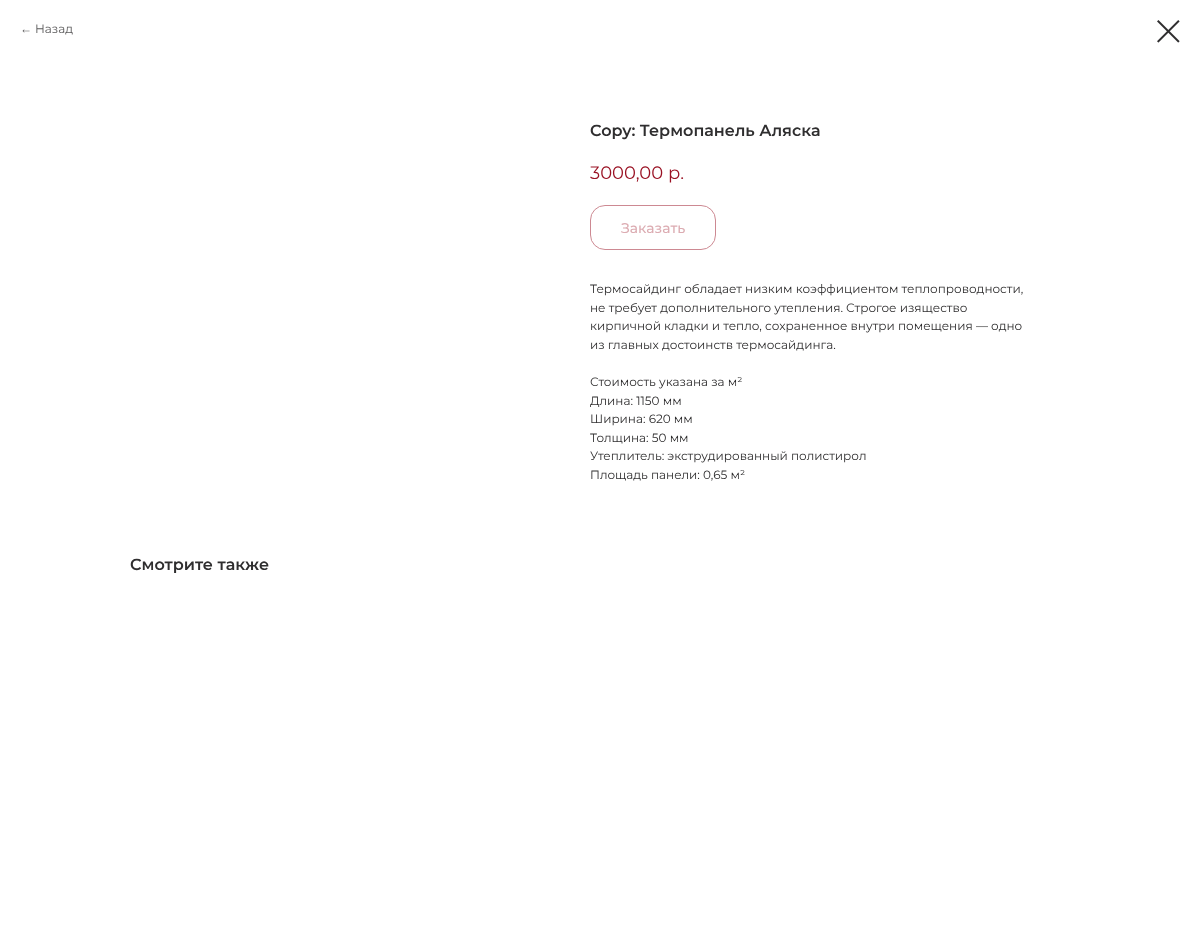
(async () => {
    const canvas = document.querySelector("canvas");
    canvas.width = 1200;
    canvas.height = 925;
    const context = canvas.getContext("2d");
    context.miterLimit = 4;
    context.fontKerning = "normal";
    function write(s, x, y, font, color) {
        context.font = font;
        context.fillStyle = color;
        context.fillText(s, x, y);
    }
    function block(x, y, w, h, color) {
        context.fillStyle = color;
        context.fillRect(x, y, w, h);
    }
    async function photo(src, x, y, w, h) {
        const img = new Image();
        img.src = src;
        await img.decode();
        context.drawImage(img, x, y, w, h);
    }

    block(0, 0, 1200, 925, "rgb(255, 255, 255)");
    write("←", 20, 33, "12px Liberation Sans", "rgb(89, 88, 89)");
    write("Назад", 35, 33, "12px Montserrat", "rgb(89, 88, 89)");
    await photo("media/1.png", 1157, 20, 23, 23);
    write("Copy: Термопанель Аляска", 590, 136, "600 16px Montserrat", "rgb(47, 46, 47)");
    write("3000,00", 590, 179, "18px Montserrat", "rgb(154, 18, 36)");
    write("р.", 668, 179, "18px Montserrat", "rgb(154, 18, 36)");
    context.beginPath();
    context.roundRect(590.5, 205.5, 125, 44, 14.5);
    context.strokeStyle = "rgb(205, 137, 146)";
    context.stroke();
    write("Заказать", 621, 233, "500 14px Montserrat", "rgb(220, 172, 178)");
    write("Термосайдинг обладает низким коэффициентом теплопроводности,", 590, 293, "12px Montserrat", "rgb(47, 46, 47)");
    write("не требует дополнительного утепления. Строгое изящество", 590, 312, "12px Montserrat", "rgb(47, 46, 47)");
    write("кирпичной кладки и тепло, сохраненное внутри помещения — одно", 590, 330, "12px Montserrat", "rgb(47, 46, 47)");
    write("из главных достоинств термосайдинга.", 590, 349, "12px Montserrat", "rgb(47, 46, 47)");
    write("Стоимость указана за м²", 590, 386, "12px Montserrat", "rgb(47, 46, 47)");
    write("Длина: 1150 мм", 590, 405, "12px Montserrat", "rgb(47, 46, 47)");
    write("Ширина: 620 мм", 590, 423, "12px Montserrat", "rgb(47, 46, 47)");
    write("Толщина: 50 мм", 590, 442, "12px Montserrat", "rgb(47, 46, 47)");
    write("Утеплитель: экструдированный полистирол", 590, 460, "12px Montserrat", "rgb(47, 46, 47)");
    write("Площадь панели: 0,65 м²", 590, 479, "12px Montserrat", "rgb(47, 46, 47)");
    write("Смотрите также", 130, 570, "600 16px Montserrat", "rgb(47, 46, 47)");
})();
